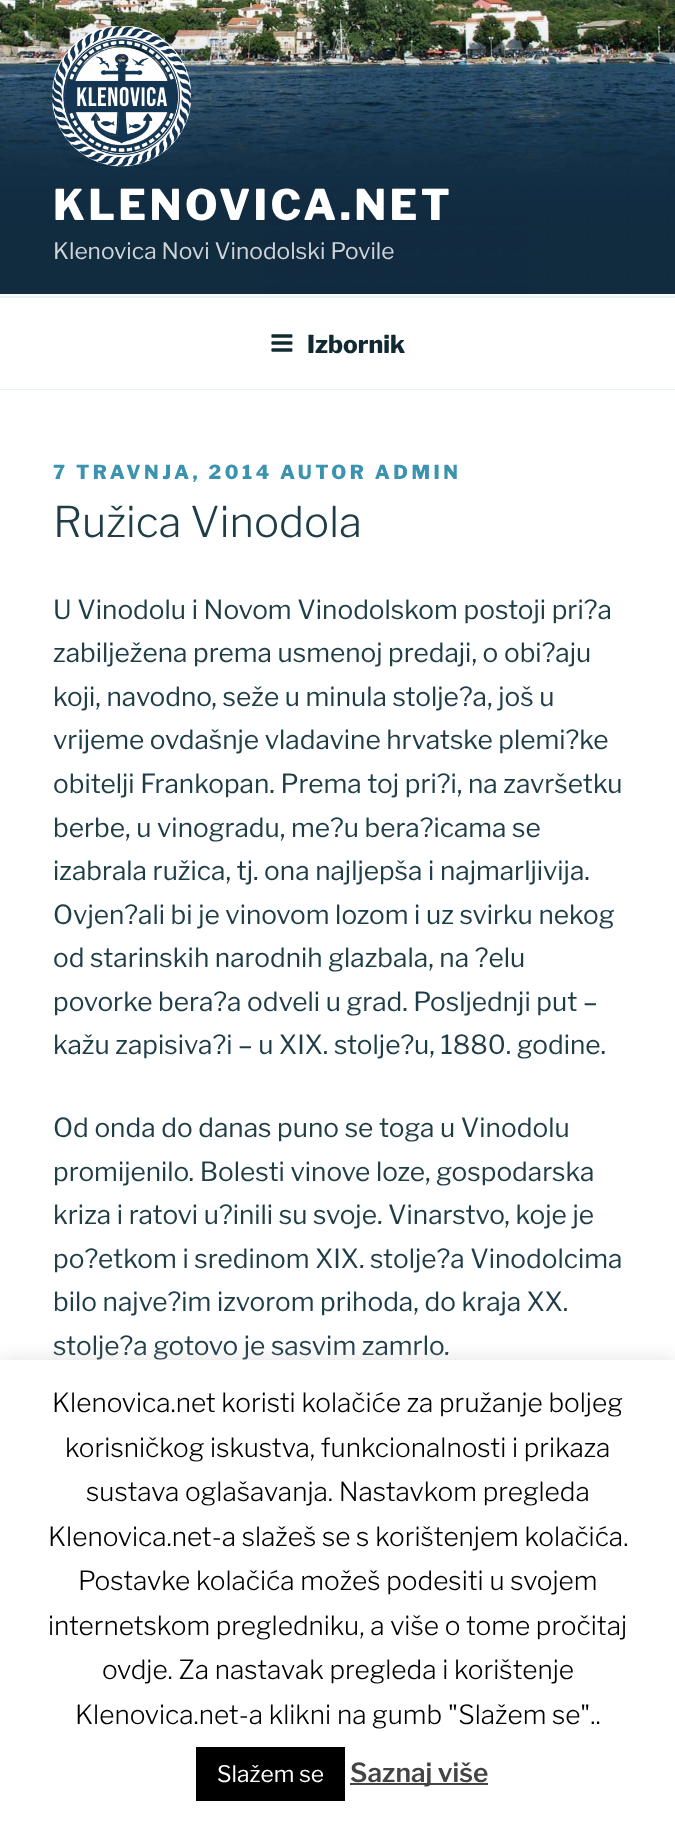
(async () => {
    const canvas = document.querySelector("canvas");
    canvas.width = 675;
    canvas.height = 1821;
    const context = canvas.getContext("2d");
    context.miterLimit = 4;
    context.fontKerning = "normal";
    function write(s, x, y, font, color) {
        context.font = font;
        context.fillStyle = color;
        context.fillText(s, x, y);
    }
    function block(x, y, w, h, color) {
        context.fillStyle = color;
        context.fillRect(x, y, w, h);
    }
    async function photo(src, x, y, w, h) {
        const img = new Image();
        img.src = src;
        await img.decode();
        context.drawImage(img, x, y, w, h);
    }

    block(0, 0, 675, 1821, "rgb(247, 251, 252)");
    await photo("media/1.png", 0, 0, 675, 294);
    await photo("media/2.png", 52, 26, 139, 141);
    context.letterSpacing = "3.4px";
    write("KLENOVICA.NET", 53, 220, "100 42px Libre Franklin", "rgb(255, 255, 255)");
    context.letterSpacing = "0px";
    write("Klenovica Novi Vinodolski Povile", 53, 259, "100 22.75px 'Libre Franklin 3'", "rgb(207, 212, 217)");
    block(0, 298, 675, 91, "rgb(255, 255, 255)");
    block(0, 296, 675, 2, "rgb(228, 242, 246)");
    block(0, 389, 675, 1, "rgb(228, 242, 246)");
    await photo("media/3.png", 271, 334, 22, 18);
    write("Izbornik", 307, 353, "100 24.5px Libre Franklin", "rgb(17, 41, 50)");
    block(0, 390, 675, 970, "rgb(255, 255, 255)");
    context.letterSpacing = "3.5px";
    write("7 TRAVNJA, 2014 AUTOR ADMIN", 53, 479, "100 19.25px Libre Franklin", "rgb(59, 147, 176)");
    context.letterSpacing = "0px";
    write("Ružica Vinodola", 53, 537, "100 42px 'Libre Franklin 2'", "rgb(31, 61, 71)");
    write("U Vinodolu i Novom Vinodolskom postoji pri?a", 53, 619, "100 26.25px 'Libre Franklin 3'", "rgb(31, 61, 71)");
    write("zabilježena prema usmenoj predaji, o obi?aju", 53, 662, "100 26.25px 'Libre Franklin 3'", "rgb(31, 61, 71)");
    write("koji, navodno, seže u minula stolje?a, još u", 53, 706, "100 26.25px 'Libre Franklin 3'", "rgb(31, 61, 71)");
    write("vrijeme ovdašnje vladavine hrvatske plemi?ke", 53, 749, "100 26.25px 'Libre Franklin 3'", "rgb(31, 61, 71)");
    write("obitelji Frankopan. Prema toj pri?i, na završetku", 53, 793, "100 26.25px 'Libre Franklin 3'", "rgb(31, 61, 71)");
    write("berbe, u vinogradu, me?u bera?icama se", 53, 837, "100 26.25px 'Libre Franklin 3'", "rgb(31, 61, 71)");
    write("izabrala ružica, tj. ona najljepša i najmarljivija.", 53, 880, "100 26.25px 'Libre Franklin 3'", "rgb(31, 61, 71)");
    write("Ovjen?ali bi je vinovom lozom i uz svirku nekog", 53, 924, "100 26.25px 'Libre Franklin 3'", "rgb(31, 61, 71)");
    write("od starinskih narodnih glazbala, na ?elu", 53, 967, "100 26.25px 'Libre Franklin 3'", "rgb(31, 61, 71)");
    write("povorke bera?a odveli u grad. Posljednji put –", 53, 1011, "100 26.25px 'Libre Franklin 3'", "rgb(31, 61, 71)");
    write("kažu zapisiva?i – u XIX. stolje?u, 1880. godine.", 53, 1054, "100 26.25px 'Libre Franklin 3'", "rgb(31, 61, 71)");
    write("Od onda do danas puno se toga u Vinodolu", 53, 1137, "100 26.25px 'Libre Franklin 3'", "rgb(31, 61, 71)");
    write("promijenilo. Bolesti vinove loze, gospodarska", 53, 1181, "100 26.25px 'Libre Franklin 3'", "rgb(31, 61, 71)");
    write("kriza i ratovi u?inili su svoje. Vinarstvo, koje je", 53, 1224, "100 26.25px 'Libre Franklin 3'", "rgb(31, 61, 71)");
    write("po?etkom i sredinom XIX. stolje?a Vinodolcima", 53, 1268, "100 26.25px 'Libre Franklin 3'", "rgb(31, 61, 71)");
    write("bilo najve?im izvorom prihoda, do kraja XX.", 53, 1311, "100 26.25px 'Libre Franklin 3'", "rgb(31, 61, 71)");
    write("stolje?a gotovo je sasvim zamrlo.", 53, 1355, "100 26.25px 'Libre Franklin 3'", "rgb(31, 61, 71)");
    context.fillStyle = "rgba(172, 171, 171, 0.3)";
    context.filter = "blur(9px)";
    context.beginPath();
    context.rect(0, 1358, 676, 462);
    context.fill();
    context.filter = "none";
    block(0, 1360, 675, 461, "rgb(255, 255, 255)");
    write("Klenovica.net koristi kolačiće za pružanje boljeg", 52, 1412, "100 26.25px 'Libre Franklin 2'", "rgb(0, 0, 0)");
    write("korisničkog iskustva, funkcionalnosti i prikaza", 65, 1457, "100 26.25px 'Libre Franklin 2'", "rgb(0, 0, 0)");
    write("sustava oglašavanja. Nastavkom pregleda", 86, 1501, "100 26.25px 'Libre Franklin 2'", "rgb(0, 0, 0)");
    write("Klenovica.net-a slažeš se s korištenjem kolačića.", 48, 1546, "100 26.25px 'Libre Franklin 2'", "rgb(0, 0, 0)");
    write("Postavke kolačića možeš podesiti u svojem", 78, 1590, "100 26.25px 'Libre Franklin 2'", "rgb(0, 0, 0)");
    write("internetskom pregledniku, a više o tome pročitaj", 48, 1635, "100 26.25px 'Libre Franklin 2'", "rgb(0, 0, 0)");
    write("ovdje. Za nastavak pregleda i korištenje", 102, 1679, "100 26.25px 'Libre Franklin 2'", "rgb(0, 0, 0)");
    write("Klenovica.net-a klikni na gumb \"Slažem se\"..", 75, 1724, "100 26.25px 'Libre Franklin 2'", "rgb(0, 0, 0)");
    block(196, 1747, 149, 54, "rgb(0, 0, 0)");
    write("Slažem se", 217, 1782, "100 22.75px 'Libre Franklin 3'", "rgb(255, 255, 255)");
    block(350, 1783, 138, 2, "rgb(68, 68, 68)");
    write("Saznaj više", 350, 1782, "100 26.25px 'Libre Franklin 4'", "rgb(68, 68, 68)");
})();
